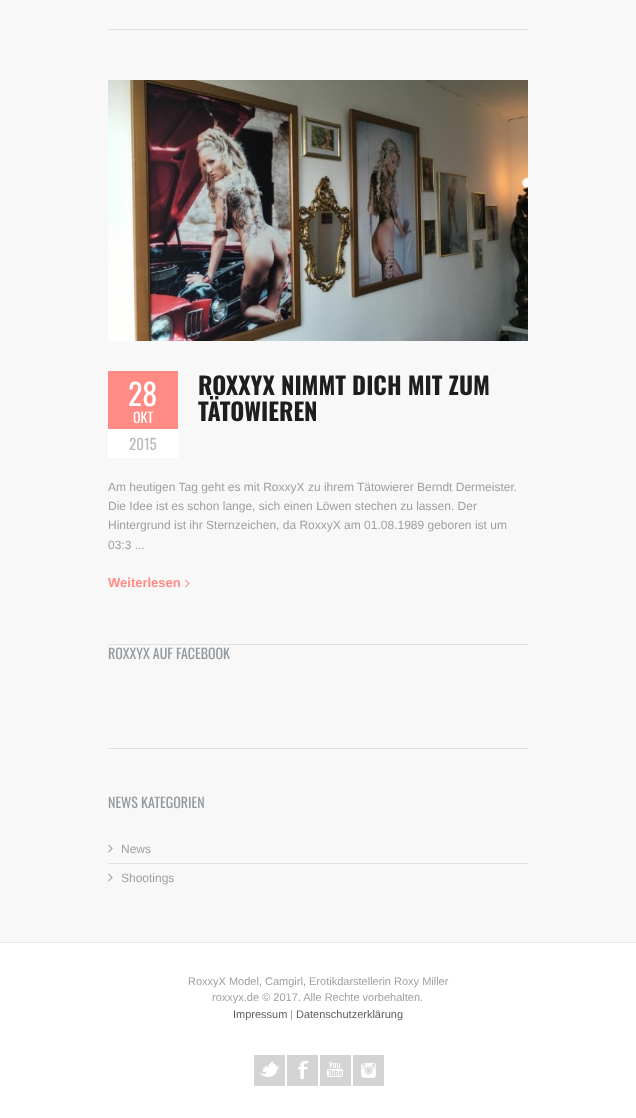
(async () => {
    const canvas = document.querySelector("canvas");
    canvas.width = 636;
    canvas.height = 1118;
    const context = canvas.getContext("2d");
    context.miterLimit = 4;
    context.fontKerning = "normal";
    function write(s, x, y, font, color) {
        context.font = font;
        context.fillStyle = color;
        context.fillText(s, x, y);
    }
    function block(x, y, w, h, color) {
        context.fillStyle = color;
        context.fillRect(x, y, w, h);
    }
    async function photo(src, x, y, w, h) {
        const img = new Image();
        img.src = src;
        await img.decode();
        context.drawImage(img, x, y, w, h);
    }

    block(0, 0, 636, 1118, "rgb(255, 255, 255)");
    block(0, 0, 636, 942, "rgb(248, 248, 248)");
    block(108, 29, 420, 1, "rgb(225, 225, 225)");
    block(108, 644, 420, 1, "rgb(225, 225, 225)");
    await photo("media/1.png", 108, 80, 420, 261);
    block(108, 371, 70, 58, "rgb(255, 139, 132)");
    write("28", 128, 406, "30px Oswald", "rgb(255, 255, 255)");
    write("OKT", 133, 423, "14px Oswald", "rgb(255, 255, 255)");
    block(108, 429, 70, 29, "rgb(255, 255, 255)");
    write("2015", 129, 450, "15px Oswald", "rgb(184, 188, 191)");
    write("ROXXYX NIMMT DICH MIT ZUM", 198, 395, "bold 24px Oswald", "rgb(29, 30, 31)");
    write("TÄTOWIEREN", 198, 421, "bold 24px Oswald", "rgb(29, 30, 31)");
    write("Am heutigen Tag geht es mit RoxxyX zu ihrem Tätowierer Berndt Dermeister.", 108, 491, "12px Liberation Sans", "rgb(159, 159, 159)");
    write("Die Idee ist es schon lange, sich einen Löwen stechen zu lassen. Der", 108, 510, "12px Liberation Sans", "rgb(159, 159, 159)");
    write("Hintergrund ist ihr Sternzeichen, da RoxxyX am 01.08.1989 geboren ist um", 108, 529, "12px Liberation Sans", "rgb(159, 159, 159)");
    write("03:3 ...", 108, 549, "12px Liberation Sans", "rgb(159, 159, 159)");
    write("Weiterlesen", 108, 587, "bold 13px Liberation Sans", "rgb(255, 139, 132)");
    await photo("media/2.png", 185, 579, 5, 9);
    block(108, 748, 420, 1, "rgb(225, 225, 225)");
    write("ROXXYX AUF FACEBOOK", 108, 659, "14px Oswald", "rgb(146, 153, 158)");
    write("NEWS KATEGORIEN", 108, 808, "14px Oswald", "rgb(146, 153, 158)");
    await photo("media/3.png", 108, 844, 5, 9);
    write("News", 121, 853, "12px Liberation Sans", "rgb(159, 159, 159)");
    block(108, 863, 420, 1, "rgb(225, 225, 225)");
    await photo("media/3.png", 108, 873, 5, 9);
    write("Shootings", 121, 882, "12px Liberation Sans", "rgb(159, 159, 159)");
    block(0, 942, 636, 1, "rgb(234, 234, 234)");
    write("RoxxyX Model, Camgirl, Erotikdarstellerin Roxy Miller", 188, 985, "11px Liberation Sans", "rgb(159, 159, 159)");
    write("roxxyx.de © 2017. Alle Rechte vorbehalten.", 212, 1001, "11px Liberation Sans", "rgb(159, 159, 159)");
    write("Impressum", 233, 1018, "11px Liberation Sans", "rgb(90, 93, 96)");
    write("|", 290, 1018, "11px Liberation Sans", "rgb(159, 159, 159)");
    write("Datenschutzerklärung", 296, 1018, "11px Liberation Sans", "rgb(90, 93, 96)");
    block(254, 1055, 31, 31, "rgb(212, 212, 212)");
    await photo("media/4.png", 260, 1062, 19, 15);
    block(287, 1055, 31, 31, "rgb(212, 212, 212)");
    await photo("media/5.png", 298, 1061, 11, 18);
    block(320, 1055, 31, 31, "rgb(212, 212, 212)");
    await photo("media/6.png", 327, 1062, 16, 15);
    block(353, 1055, 31, 31, "rgb(212, 212, 212)");
    await photo("media/7.png", 361, 1063, 15, 15);
})();
